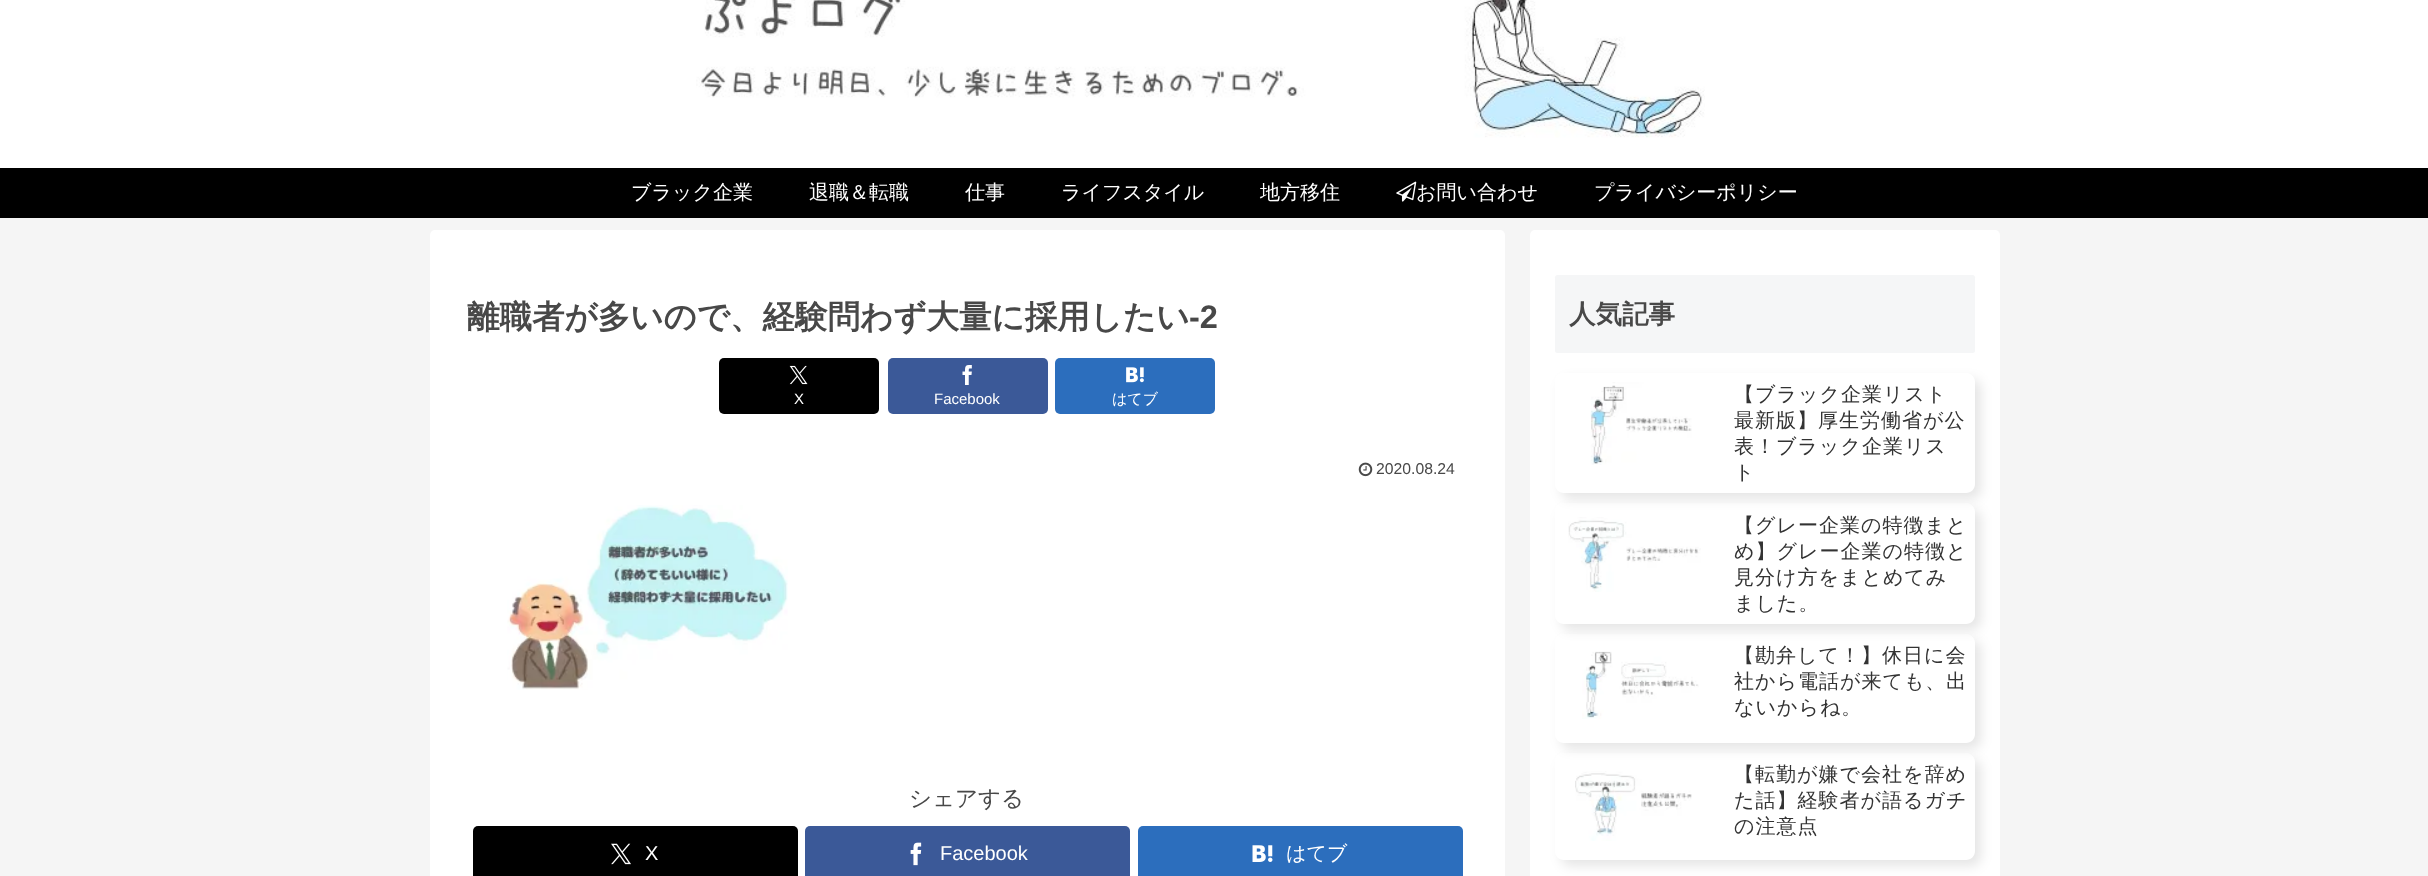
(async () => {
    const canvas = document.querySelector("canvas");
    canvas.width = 2428;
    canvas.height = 876;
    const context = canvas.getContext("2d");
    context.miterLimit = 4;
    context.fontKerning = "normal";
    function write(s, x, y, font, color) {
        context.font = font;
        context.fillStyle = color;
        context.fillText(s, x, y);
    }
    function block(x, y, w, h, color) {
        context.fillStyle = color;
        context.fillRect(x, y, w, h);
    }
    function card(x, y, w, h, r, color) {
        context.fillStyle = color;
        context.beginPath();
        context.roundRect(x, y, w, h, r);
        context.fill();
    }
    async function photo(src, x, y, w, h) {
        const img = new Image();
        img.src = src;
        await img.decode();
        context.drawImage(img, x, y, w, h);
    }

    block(0, 0, 2428, 876, "rgb(245, 245, 245)");
    block(0, 0, 2428, 168, "rgb(255, 255, 255)");
    await photo("media/1.png", 696, 0, 1009, 138);
    block(0, 168, 2428, 50, "rgb(0, 0, 0)");
    write("ブラック企業", 631, 199, "500 20px WenQuanYi Zen Hei", "rgb(255, 255, 255)");
    write("退職＆転職", 809, 199, "500 20px WenQuanYi Zen Hei", "rgb(255, 255, 255)");
    write("仕事", 965, 199, "500 20px WenQuanYi Zen Hei", "rgb(255, 255, 255)");
    write("ライフスタイル", 1061, 199, "500 20px WenQuanYi Zen Hei", "rgb(255, 255, 255)");
    write("地方移住", 1260, 199, "500 20px WenQuanYi Zen Hei", "rgb(255, 255, 255)");
    await photo("media/2.png", 1396, 181, 21, 21);
    write("お問い合わせ", 1416, 199, "500 20px WenQuanYi Zen Hei", "rgb(255, 255, 255)");
    write("プライバシーポリシー", 1594, 199, "500 20px WenQuanYi Zen Hei", "rgb(255, 255, 255)");
    card(430, 230, 1075, 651, 5, "rgb(255, 255, 255)");
    write("離職者が多いので、経験問わず大量に採用したい", 467, 328, "bold 32.5px WenQuanYi Zen Hei", "rgb(72, 72, 72)");
    write("-2", 1189, 328, "bold 32.5px Liberation Sans", "rgb(72, 72, 72)");
    card(719, 358, 160, 56, 5, "rgb(0, 0, 0)");
    await photo("media/3.png", 789, 365, 19, 20);
    write("X", 794, 404, "15px Liberation Sans", "rgb(255, 255, 255)");
    card(888, 358, 160, 56, 5, "rgb(59, 89, 152)");
    await photo("media/4.png", 962, 365, 10, 20);
    write("Facebook", 934, 404, "15px Liberation Sans", "rgb(255, 255, 255)");
    card(1055, 358, 160, 56, 5, "rgb(44, 110, 189)");
    await photo("media/5.png", 1126, 367, 18, 16);
    write("はてブ", 1112, 404, "500 15px WenQuanYi Zen Hei", "rgb(255, 255, 255)");
    await photo("media/6.png", 1358, 462, 15, 15);
    write("2020.08.24", 1376, 474, "15.75px Liberation Sans", "rgb(72, 72, 72)");
    await photo("media/7.png", 507, 505, 281, 185);
    write("シェアする", 909, 806, "500 22.5px WenQuanYi Zen Hei", "rgb(72, 72, 72)");
    card(473, 826, 325, 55, 5, "rgb(0, 0, 0)");
    await photo("media/8.png", 611, 843, 20, 22);
    write("X", 645, 860, "20px Liberation Sans", "rgb(255, 255, 255)");
    card(805, 826, 325, 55, 5, "rgb(59, 89, 152)");
    await photo("media/9.png", 910, 842, 12, 24);
    write("Facebook", 940, 860, "20px Liberation Sans", "rgb(255, 255, 255)");
    card(1138, 826, 325, 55, 5, "rgb(44, 110, 189)");
    await photo("media/10.png", 1252, 845, 21, 17);
    write("はてブ", 1286, 860, "500 20px WenQuanYi Zen Hei", "rgb(255, 255, 255)");
    card(1530, 230, 470, 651, 5, "rgb(255, 255, 255)");
    card(1555, 275, 420, 78, 2.5, "rgb(245, 246, 247)");
    write("人気記事", 1569, 323, "bold 26.5px WenQuanYi Zen Hei", "rgb(72, 72, 72)");
    context.save();
    context.beginPath();
    context.moveTo(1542, 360);
    context.lineTo(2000, 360);
    context.lineTo(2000, 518);
    context.lineTo(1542, 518);
    context.closePath();
    context.moveTo(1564, 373);
    context.lineTo(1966, 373);
    context.bezierCurveTo(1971, 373, 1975, 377, 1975, 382);
    context.lineTo(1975, 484);
    context.bezierCurveTo(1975, 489, 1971, 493, 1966, 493);
    context.lineTo(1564, 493);
    context.bezierCurveTo(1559, 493, 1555, 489, 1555, 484);
    context.lineTo(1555, 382);
    context.bezierCurveTo(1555, 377, 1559, 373, 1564, 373);
    context.closePath();
    context.clip("evenodd");
    context.fillStyle = "rgba(0, 0, 0, 0.1)";
    context.filter = "blur(6px)";
    context.beginPath();
    context.roundRect(1561, 379, 420, 120, 9);
    context.fill();
    context.filter = "none";
    context.restore();
    await photo("media/11.png", 1590, 382, 102, 83);
    context.letterSpacing = "1px";
    write("【ブラック企業リスト", 1734, 401, "500 20px WenQuanYi Zen Hei", "rgb(51, 51, 51)");
    write("最新版】厚生労働省が公", 1734, 427, "500 20px WenQuanYi Zen Hei", "rgb(51, 51, 51)");
    write("表！ブラック企業リス", 1734, 453, "500 20px WenQuanYi Zen Hei", "rgb(51, 51, 51)");
    write("ト", 1734, 479, "500 20px WenQuanYi Zen Hei", "rgb(51, 51, 51)");
    context.save();
    context.beginPath();
    context.moveTo(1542, 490);
    context.lineTo(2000, 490);
    context.lineTo(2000, 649);
    context.lineTo(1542, 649);
    context.closePath();
    context.moveTo(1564, 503);
    context.lineTo(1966, 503);
    context.bezierCurveTo(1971, 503, 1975, 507, 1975, 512);
    context.lineTo(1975, 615);
    context.bezierCurveTo(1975, 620, 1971, 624, 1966, 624);
    context.lineTo(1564, 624);
    context.bezierCurveTo(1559, 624, 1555, 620, 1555, 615);
    context.lineTo(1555, 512);
    context.bezierCurveTo(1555, 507, 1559, 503, 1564, 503);
    context.closePath();
    context.clip("evenodd");
    context.fillStyle = "rgba(0, 0, 0, 0.1)";
    context.filter = "blur(6px)";
    context.beginPath();
    context.roundRect(1561, 509, 420, 121, 9);
    context.fill();
    context.filter = "none";
    context.restore();
    await photo("media/12.png", 1568, 517, 133, 75);
    write("【グレー企業の特徴まと", 1734, 532, "500 20px WenQuanYi Zen Hei", "rgb(51, 51, 51)");
    write("め】グレー企業の特徴と", 1734, 558, "500 20px WenQuanYi Zen Hei", "rgb(51, 51, 51)");
    write("見分け方をまとめてみ", 1734, 584, "500 20px WenQuanYi Zen Hei", "rgb(51, 51, 51)");
    write("ました。", 1734, 610, "500 20px WenQuanYi Zen Hei", "rgb(51, 51, 51)");
    context.save();
    context.beginPath();
    context.moveTo(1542, 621);
    context.lineTo(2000, 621);
    context.lineTo(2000, 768);
    context.lineTo(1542, 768);
    context.closePath();
    context.moveTo(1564, 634);
    context.lineTo(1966, 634);
    context.bezierCurveTo(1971, 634, 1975, 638, 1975, 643);
    context.lineTo(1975, 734);
    context.bezierCurveTo(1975, 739, 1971, 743, 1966, 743);
    context.lineTo(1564, 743);
    context.bezierCurveTo(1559, 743, 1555, 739, 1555, 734);
    context.lineTo(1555, 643);
    context.bezierCurveTo(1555, 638, 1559, 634, 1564, 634);
    context.closePath();
    context.clip("evenodd");
    context.fillStyle = "rgba(0, 0, 0, 0.1)";
    context.filter = "blur(6px)";
    context.beginPath();
    context.roundRect(1561, 640, 420, 109, 9);
    context.fill();
    context.filter = "none";
    context.restore();
    await photo("media/13.png", 1582, 651, 117, 68);
    write("【勘弁して！】休日に会", 1734, 662, "500 20px WenQuanYi Zen Hei", "rgb(51, 51, 51)");
    write("社から電話が来ても、出", 1734, 688, "500 20px WenQuanYi Zen Hei", "rgb(51, 51, 51)");
    write("ないからね。", 1734, 714, "500 20px WenQuanYi Zen Hei", "rgb(51, 51, 51)");
    context.save();
    context.beginPath();
    context.moveTo(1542, 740);
    context.lineTo(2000, 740);
    context.lineTo(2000, 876);
    context.lineTo(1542, 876);
    context.closePath();
    context.moveTo(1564, 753);
    context.lineTo(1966, 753);
    context.bezierCurveTo(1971, 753, 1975, 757, 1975, 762);
    context.lineTo(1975, 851);
    context.bezierCurveTo(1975, 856, 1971, 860, 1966, 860);
    context.lineTo(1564, 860);
    context.bezierCurveTo(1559, 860, 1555, 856, 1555, 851);
    context.lineTo(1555, 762);
    context.bezierCurveTo(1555, 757, 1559, 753, 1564, 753);
    context.closePath();
    context.clip("evenodd");
    context.fillStyle = "rgba(0, 0, 0, 0.1)";
    context.filter = "blur(6px)";
    context.beginPath();
    context.roundRect(1561, 759, 420, 107, 9);
    context.fill();
    context.filter = "none";
    context.restore();
    await photo("media/14.png", 1575, 771, 117, 70);
    write("【転勤が嫌で会社を辞め", 1734, 781, "500 20px WenQuanYi Zen Hei", "rgb(51, 51, 51)");
    write("た話】経験者が語るガチ", 1734, 807, "500 20px WenQuanYi Zen Hei", "rgb(51, 51, 51)");
    write("の注意点", 1734, 833, "500 20px WenQuanYi Zen Hei", "rgb(51, 51, 51)");
})();
